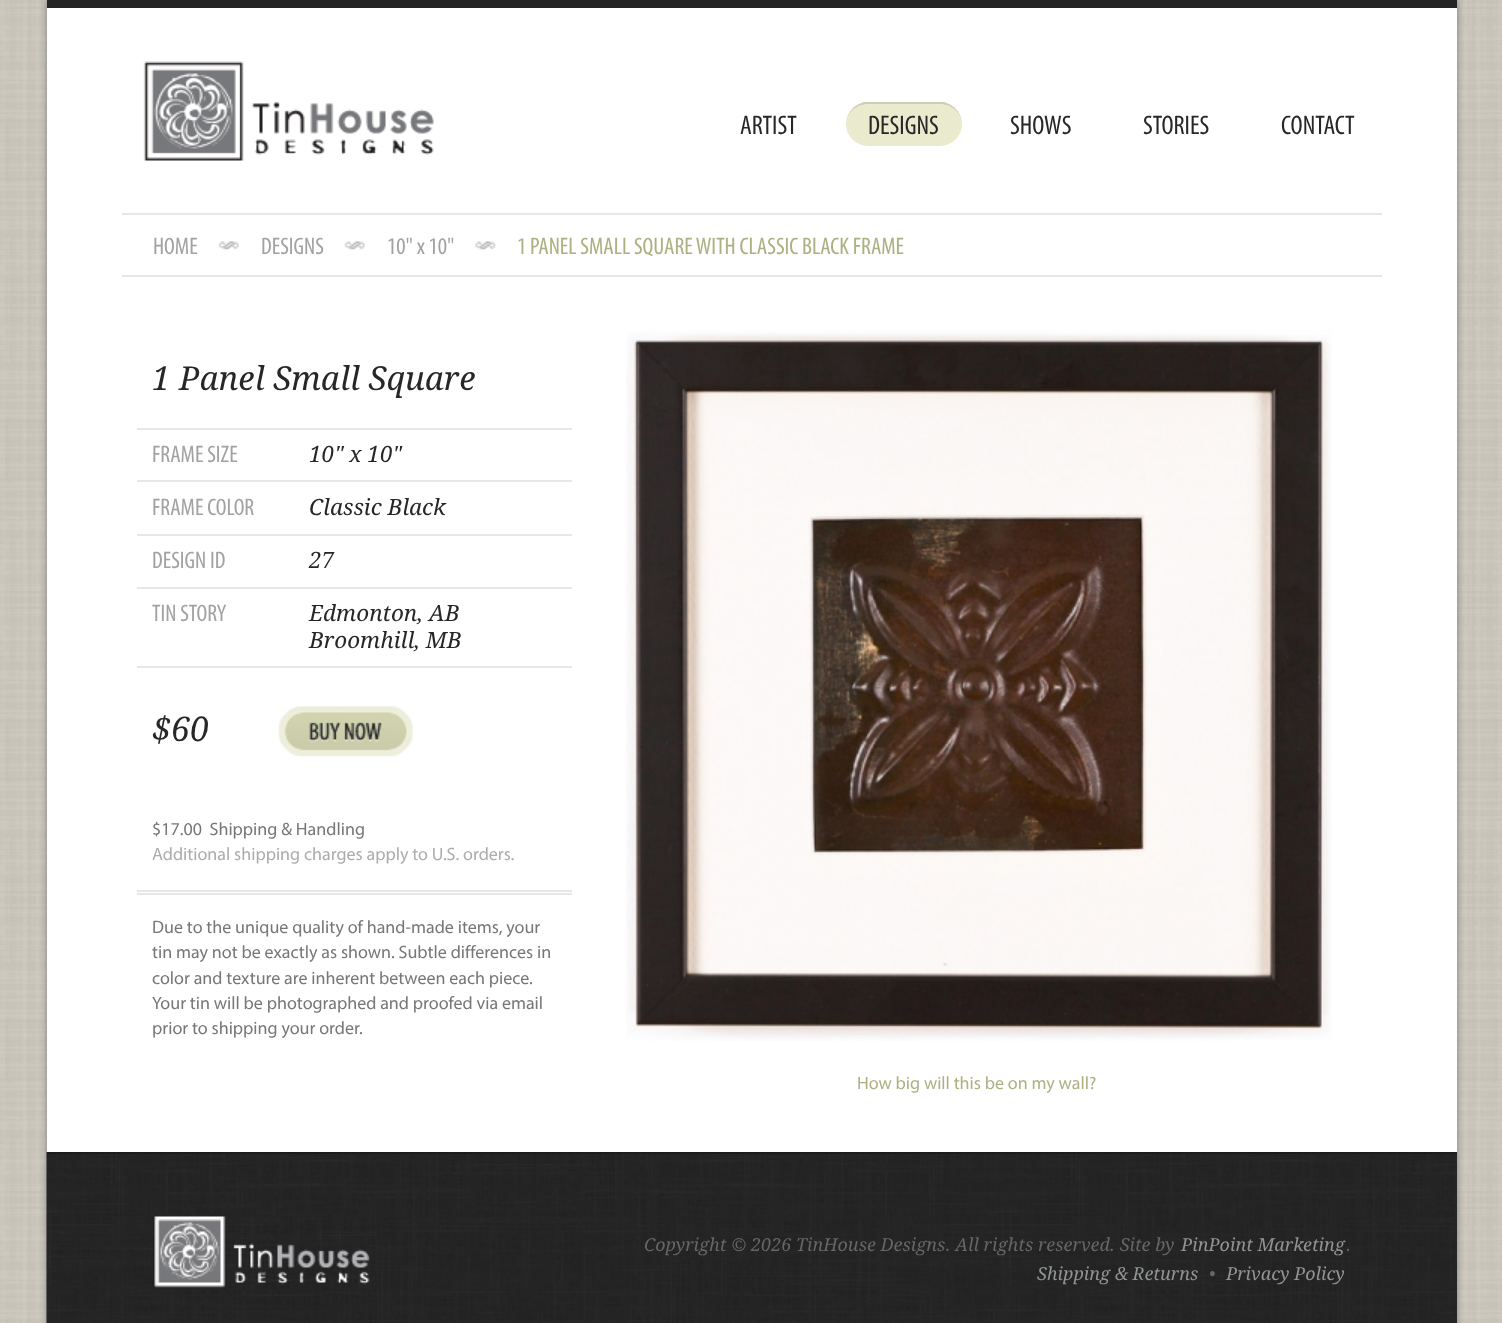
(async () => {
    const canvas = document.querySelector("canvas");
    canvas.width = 1502;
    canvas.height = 1323;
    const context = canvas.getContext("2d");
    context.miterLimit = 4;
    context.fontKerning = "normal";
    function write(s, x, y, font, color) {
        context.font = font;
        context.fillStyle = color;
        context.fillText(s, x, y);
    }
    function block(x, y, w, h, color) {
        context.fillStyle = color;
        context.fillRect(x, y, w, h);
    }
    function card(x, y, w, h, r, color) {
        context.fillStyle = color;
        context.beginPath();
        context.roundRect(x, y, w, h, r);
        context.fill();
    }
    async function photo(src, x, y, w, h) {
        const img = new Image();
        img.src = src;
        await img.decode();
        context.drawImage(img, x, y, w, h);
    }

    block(0, 0, 1502, 1323, "rgb(255, 255, 255)");
    await photo("media/1.png", 0, 0, 1502, 1323);
    context.fillStyle = "rgb(119, 119, 119)";
    context.filter = "blur(3px)";
    context.beginPath();
    context.rect(47, 0, 1410, 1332);
    context.fill();
    context.filter = "none";
    block(47, 8, 1410, 1144, "rgb(255, 255, 255)");
    block(47, 0, 1410, 8, "rgb(37, 37, 37)");
    await photo("media/2.png", 143, 61, 291, 100);
    write("ARTIST", 740, 134, "27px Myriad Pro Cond", "rgb(39, 39, 39)");
    card(846, 102, 116, 44, 22, "rgb(234, 234, 207)");
    context.fillStyle = "rgb(206, 206, 182)";
    context.beginPath();
    context.moveTo(868, 104);
    context.lineTo(940, 104);
    context.bezierCurveTo(952, 104, 962, 113, 962, 125);
    context.bezierCurveTo(962, 114, 955, 105, 944, 102);
    context.lineTo(928, 102);
    context.lineTo(864, 102);
    context.bezierCurveTo(853, 105, 846, 114, 846, 125);
    context.bezierCurveTo(846, 113, 856, 104, 868, 104);
    context.closePath();
    context.fill();
    write("DESIGNS", 868, 134, "27px Myriad Pro Cond", "rgb(39, 39, 39)");
    write("SHOWS", 1010, 134, "27px Myriad Pro Cond", "rgb(39, 39, 39)");
    write("STORIES", 1143, 134, "27px Myriad Pro Cond", "rgb(39, 39, 39)");
    write("CONTACT", 1281, 134, "27px Myriad Pro Cond", "rgb(39, 39, 39)");
    block(122, 213, 1260, 2, "rgb(231, 231, 231)");
    block(122, 275, 1260, 2, "rgb(231, 231, 231)");
    write("HOME", 153, 254, "24px Myriad Pro Cond", "rgb(162, 162, 162)");
    await photo("media/3.png", 218, 241, 21, 10);
    write("DESIGNS", 261, 254, "24px Myriad Pro Cond", "rgb(162, 162, 162)");
    await photo("media/3.png", 344, 241, 21, 10);
    write("10\" x 10\"", 387, 254, "24px Myriad Pro Cond", "rgb(162, 162, 162)");
    await photo("media/4.png", 475, 241, 21, 10);
    write("1 PANEL SMALL SQUARE WITH CLASSIC BLACK FRAME", 517, 254, "24px Myriad Pro Cond", "rgb(174, 176, 129)");
    block(137, 428, 435, 2, "rgb(231, 231, 231)");
    write("1 Panel Small Square", 152, 390, "italic 33px Droid Serif", "rgb(39, 39, 39)");
    block(137, 480, 435, 2, "rgb(231, 231, 231)");
    write("FRAME SIZE", 152, 462, "24px Myriad Pro Cond", "rgb(162, 162, 162)");
    write("10\" x 10\"", 309, 462, "italic 22.5px Droid Serif", "rgb(39, 39, 39)");
    block(137, 534, 435, 2, "rgb(231, 231, 231)");
    write("FRAME COLOR", 152, 515, "24px Myriad Pro Cond", "rgb(162, 162, 162)");
    write("Classic Black", 309, 515, "italic 22.5px Droid Serif", "rgb(39, 39, 39)");
    block(137, 587, 435, 2, "rgb(231, 231, 231)");
    write("DESIGN ID", 152, 568, "24px Myriad Pro Cond", "rgb(162, 162, 162)");
    write("27", 309, 568, "italic 22.5px Droid Serif", "rgb(39, 39, 39)");
    block(137, 666, 435, 2, "rgb(231, 231, 231)");
    write("TIN STORY", 152, 621, "24px Myriad Pro Cond", "rgb(162, 162, 162)");
    write("Edmonton, AB", 309, 621, "italic 22.5px Droid Serif", "rgb(39, 39, 39)");
    write("Broomhill, MB", 309, 648, "italic 22.5px Droid Serif", "rgb(39, 39, 39)");
    write("$60", 152, 741, "italic 34px Droid Serif", "rgb(39, 39, 39)");
    await photo("media/5.png", 278, 706, 135, 51);
    write("$17.00  Shipping & Handling", 152, 835, "18px Myriad", "rgb(119, 119, 119)");
    write("Additional shipping charges apply to U.S. orders.", 152, 860, "18px Myriad", "rgb(172, 172, 172)");
    block(137, 890, 435, 2, "rgb(231, 231, 231)");
    block(137, 893, 435, 2, "rgb(231, 231, 231)");
    write("Due to the unique quality of hand-made items, your", 152, 933, "18px Myriad", "rgb(119, 119, 119)");
    write("tin may not be exactly as shown. Subtle differences in", 152, 958, "18px Myriad", "rgb(119, 119, 119)");
    write("color and texture are inherent between each piece.", 152, 984, "18px Myriad", "rgb(119, 119, 119)");
    write("Your tin will be photographed and proofed via email", 152, 1009, "18px Myriad", "rgb(119, 119, 119)");
    write("prior to shipping your order.", 152, 1034, "18px Myriad", "rgb(119, 119, 119)");
    await photo("media/6.png", 626, 329, 706, 712);
    write("How big will this be on my wall?", 857, 1089, "18px Myriad", "rgb(174, 176, 129)");
    block(1456, 1154, 1, 169, "rgb(38, 40, 38)");
    await photo("media/7.png", 46, 1152, 1410, 171);
    block(47, 1152, 1410, 2, "rgb(27, 29, 27)");
    await photo("media/8.png", 151, 1214, 224, 76);
    write("Copyright © 2026 TinHouse Designs. All rights reserved. Site by", 644, 1251, "italic 18px Droid Serif", "rgb(102, 102, 102)");
    write("PinPoint Marketing", 1181, 1251, "italic 18px Droid Serif", "rgb(145, 149, 145)");
    write(".", 1346, 1251, "italic 18px Droid Serif", "rgb(102, 102, 102)");
    write("Shipping & Returns", 1037, 1280, "italic 18px Droid Serif", "rgb(145, 149, 145)");
    write("•", 1209, 1280, "italic 18px Droid Serif", "rgb(102, 102, 102)");
    write("Privacy Policy", 1226, 1280, "italic 18px Droid Serif", "rgb(145, 149, 145)");
})();
